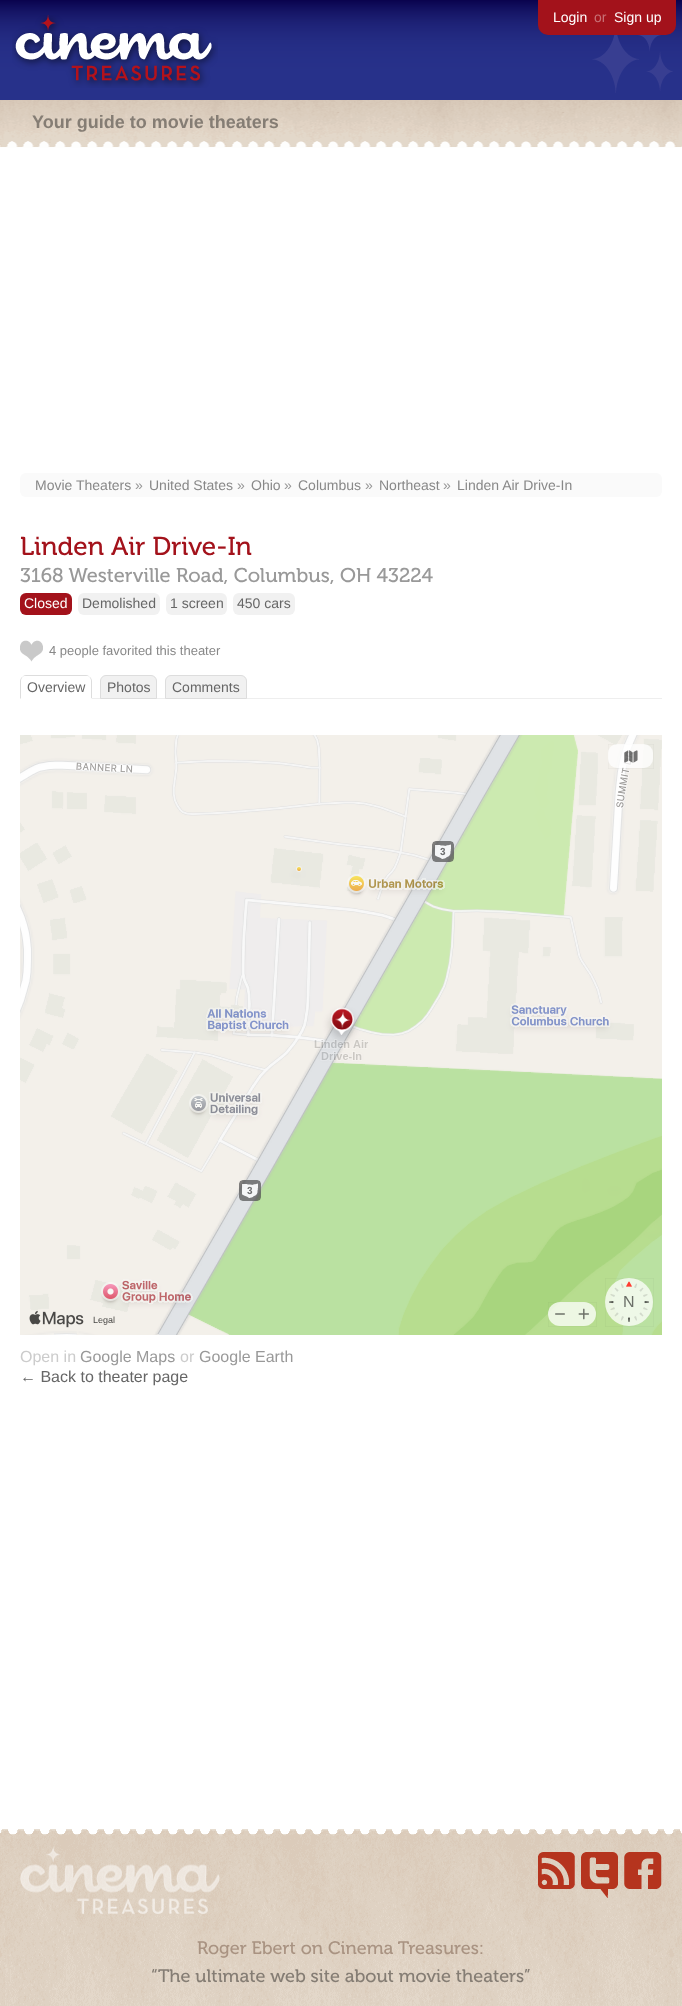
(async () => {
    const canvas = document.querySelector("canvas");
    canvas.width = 682;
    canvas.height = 2006;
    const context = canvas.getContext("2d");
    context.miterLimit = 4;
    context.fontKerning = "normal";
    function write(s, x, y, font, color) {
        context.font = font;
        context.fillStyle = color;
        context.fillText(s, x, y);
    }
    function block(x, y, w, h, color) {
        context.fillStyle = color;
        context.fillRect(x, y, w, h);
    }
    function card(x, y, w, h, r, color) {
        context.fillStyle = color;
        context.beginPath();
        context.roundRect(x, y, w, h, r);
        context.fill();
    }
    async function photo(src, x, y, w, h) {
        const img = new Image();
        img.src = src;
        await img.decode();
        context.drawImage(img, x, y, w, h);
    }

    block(0, 0, 682, 2006, "rgb(255, 255, 255)");
    await photo("media/1.png", 0, 0, 682, 100);
    await photo("media/2.png", 12, 15, 206, 73);
    context.fillStyle = "rgb(163, 18, 27)";
    context.beginPath();
    context.roundRect(538, 0, 138, 35, [0, 0, 10, 10]);
    context.fill();
    write("Login", 553, 22, "14px Liberation Sans", "rgb(255, 255, 255)");
    write("or", 594, 22, "14px Liberation Sans", "rgb(200, 113, 118)");
    write("Sign up", 614, 22, "14px Liberation Sans", "rgb(255, 255, 255)");
    await photo("media/3.png", 592, 35, 81, 58);
    await photo("media/4.png", 0, 100, 682, 48);
    write("Your guide to movie theaters", 32, 128, "bold 18px Liberation Sans", "rgb(133, 125, 116)");
    card(20, 473, 642, 24, 6, "rgb(250, 250, 250)");
    write("Movie Theaters", 35, 490, "14px Liberation Sans", "rgb(136, 136, 136)");
    write("»", 135, 490, "14px Liberation Sans", "rgb(153, 153, 153)");
    write("United States", 149, 490, "14px Liberation Sans", "rgb(136, 136, 136)");
    write("»", 237, 490, "14px Liberation Sans", "rgb(153, 153, 153)");
    write("Ohio", 251, 490, "14px Liberation Sans", "rgb(136, 136, 136)");
    write("»", 284, 490, "14px Liberation Sans", "rgb(153, 153, 153)");
    write("Columbus", 298, 490, "14px Liberation Sans", "rgb(136, 136, 136)");
    write("»", 365, 490, "14px Liberation Sans", "rgb(153, 153, 153)");
    write("Northeast", 379, 490, "14px Liberation Sans", "rgb(136, 136, 136)");
    write("»", 443, 490, "14px Liberation Sans", "rgb(153, 153, 153)");
    write("Linden Air Drive-In", 457, 490, "14px Liberation Sans", "rgb(136, 136, 136)");
    write("Linden Air Drive-In", 20, 555, "26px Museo", "rgb(163, 18, 27)");
    write("3168 Westerville Road, Columbus, OH 43224", 20, 582, "20px Museo", "rgb(153, 153, 153)");
    card(20, 593, 52, 22, 6, "rgb(163, 18, 27)");
    write("Closed", 24, 608, "14px Liberation Sans", "rgb(255, 255, 255)");
    card(78, 593, 82, 22, 6, "rgb(241, 241, 241)");
    write("Demolished", 82, 608, "14px Liberation Sans", "rgb(102, 102, 102)");
    card(166, 593, 61, 22, 6, "rgb(241, 241, 241)");
    write("1 screen", 170, 608, "14px Liberation Sans", "rgb(102, 102, 102)");
    card(233, 593, 62, 22, 6, "rgb(241, 241, 241)");
    write("450 cars", 237, 608, "14px Liberation Sans", "rgb(102, 102, 102)");
    await photo("media/5.png", 20, 640, 23, 22);
    write("4 people favorited this theater", 49, 655, "13px Liberation Sans", "rgb(136, 136, 136)");
    block(92, 698, 570, 1, "rgb(238, 238, 238)");
    write("Overview", 27, 692, "14px Liberation Sans", "rgb(102, 102, 102)");
    context.fillStyle = "rgb(221, 221, 221)";
    context.beginPath();
    context.moveTo(26, 675);
    context.bezierCurveTo(24, 675, 23, 676, 22, 677);
    context.bezierCurveTo(23, 676, 24, 676, 26, 676);
    context.lineTo(86, 676);
    context.bezierCurveTo(88, 676, 89, 676, 90, 677);
    context.bezierCurveTo(89, 676, 88, 675, 86, 675);
    context.closePath();
    context.fill();
    context.beginPath();
    context.moveTo(92, 699);
    context.lineTo(92, 681);
    context.bezierCurveTo(92, 679.5, 91, 678, 90, 677);
    context.lineTo(89.5, 677.5);
    context.bezierCurveTo(90.5, 678, 91, 679.5, 91, 681);
    context.lineTo(91, 698);
    context.closePath();
    context.fill();
    context.fillStyle = "rgb(255, 255, 255)";
    context.beginPath();
    context.moveTo(92, 699);
    context.lineTo(91, 698);
    context.lineTo(21, 698);
    context.lineTo(20, 699);
    context.closePath();
    context.fill();
    context.fillStyle = "rgb(221, 221, 221)";
    context.beginPath();
    context.moveTo(20, 699);
    context.lineTo(21, 698);
    context.lineTo(21, 681);
    context.bezierCurveTo(21, 679.5, 21.5, 678, 22.5, 677.5);
    context.lineTo(22, 677);
    context.bezierCurveTo(21, 678, 20, 679.5, 20, 681);
    context.closePath();
    context.fill();
    context.fillStyle = "rgb(241, 241, 241)";
    context.beginPath();
    context.roundRect(100.5, 675.5, 56, 23, [5.5, 5.5, 0, 0]);
    context.fill();
    context.strokeStyle = "rgb(221, 221, 221)";
    context.stroke();
    write("Photos", 107, 692, "14px Liberation Sans", "rgb(102, 102, 102)");
    context.fillStyle = "rgb(241, 241, 241)";
    context.beginPath();
    context.roundRect(165.5, 675.5, 81, 23, [5.5, 5.5, 0, 0]);
    context.fill();
    context.stroke();
    write("Comments", 172, 692, "14px Liberation Sans", "rgb(102, 102, 102)");
    await photo("media/6.png", 20, 735, 642, 600);
    await photo("media/7.png", 20, 735, 642, 600);
    context.strokeStyle = "rgba(0, 0, 0, 0.05)";
    context.lineWidth = 0.5;
    context.strokeRect(608.25, 744.25, 45.5, 24.5);
    card(608, 744, 45, 24, 9, "rgba(255, 255, 255, 0.75)");
    await photo("media/8.png", 624, 750, 14, 13);
    context.strokeRect(548.25, 1302.25, 48.5, 24.5);
    card(548, 1302, 48, 24, 12, "rgba(255, 255, 255, 0.75)");
    await photo("media/9.png", 555, 1313, 10, 2);
    await photo("media/10.png", 578, 1308, 11, 12);
    context.strokeRect(605.25, 1278.25, 48.5, 48.5);
    context.beginPath();
    context.arc(629, 1302, 24, 0, Math.PI * 2);
    context.fill();
    await photo("media/11.png", 609, 1281, 40, 41);
    write("N", 623, 1307, "16px Liberation Sans", "rgb(107, 111, 104)");
    await photo("media/12.png", 29, 1310, 55, 18);
    write("Legal", 93, 1323, "9px Liberation Sans", "rgb(73, 72, 70)");
    write("Open in", 20, 1362, "16px Liberation Sans", "rgb(204, 204, 204)");
    write("Google Maps", 80, 1362, "16px Liberation Sans", "rgb(153, 153, 153)");
    write("or", 180, 1362, "16px Liberation Sans", "rgb(204, 204, 204)");
    write("Google Earth", 199, 1362, "16px Liberation Sans", "rgb(153, 153, 153)");
    write("← Back to theater page", 20, 1382, "16px Liberation Sans", "rgb(102, 102, 102)");
    await photo("media/13.png", 0, 1829, 682, 177);
    await photo("media/14.png", 20, 1846, 200, 68);
    await photo("media/15.png", 538, 1852, 37, 37);
    await photo("media/16.png", 581, 1852, 37, 46);
    await photo("media/17.png", 624, 1852, 38, 37);
    write("Roger Ebert on Cinema Treasures:", 197, 1954, "18px Museo", "rgb(169, 147, 130)");
    write("“The ultimate web site about movie theaters”", 151, 1982, "18px Museo", "rgb(133, 125, 116)");
})();
